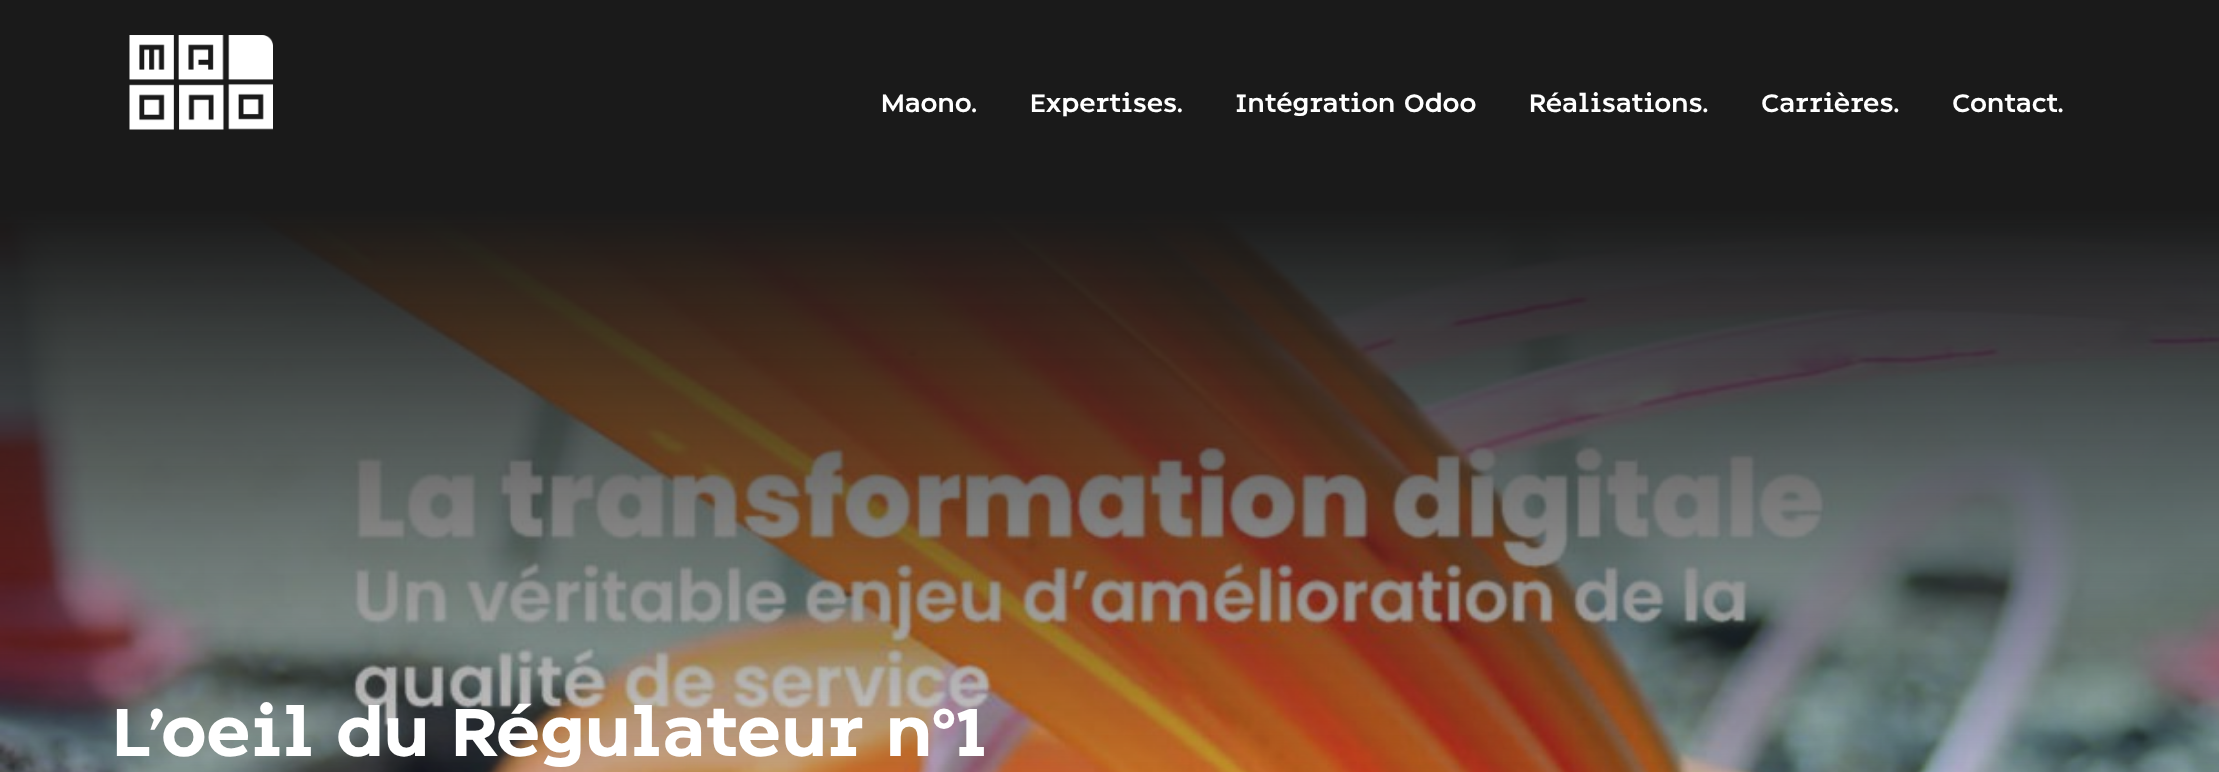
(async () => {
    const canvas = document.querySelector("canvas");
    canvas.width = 2219;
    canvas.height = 772;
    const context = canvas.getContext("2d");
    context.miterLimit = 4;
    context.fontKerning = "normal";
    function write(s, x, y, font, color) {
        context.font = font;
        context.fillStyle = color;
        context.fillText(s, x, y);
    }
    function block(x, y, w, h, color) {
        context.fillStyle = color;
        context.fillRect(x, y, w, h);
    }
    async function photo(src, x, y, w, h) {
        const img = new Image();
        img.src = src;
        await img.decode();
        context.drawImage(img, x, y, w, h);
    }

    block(0, 0, 2219, 772, "rgb(26, 26, 26)");
    await photo("media/1.png", 129, 35, 144, 95);
    write("Maono.", 881, 112, "500 26.25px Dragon", "rgb(255, 255, 255)");
    write("Expertises.", 1030, 112, "500 26.25px Dragon", "rgb(255, 255, 255)");
    write("Intégration Odoo", 1235, 112, "500 26.25px Dragon", "rgb(255, 255, 255)");
    write("Réalisations.", 1529, 112, "500 26.25px Dragon", "rgb(255, 255, 255)");
    write("Carrières.", 1761, 112, "500 26.25px Dragon", "rgb(255, 255, 255)");
    write("Contact.", 1952, 112, "500 26.25px Dragon", "rgb(255, 255, 255)");
    await photo("media/2.png", 0, 210, 2219, 562);
    write("L’oeil du Régulateur n°1", 112, 756, "bold 70px Dragon", "rgb(255, 255, 255)");
})();
